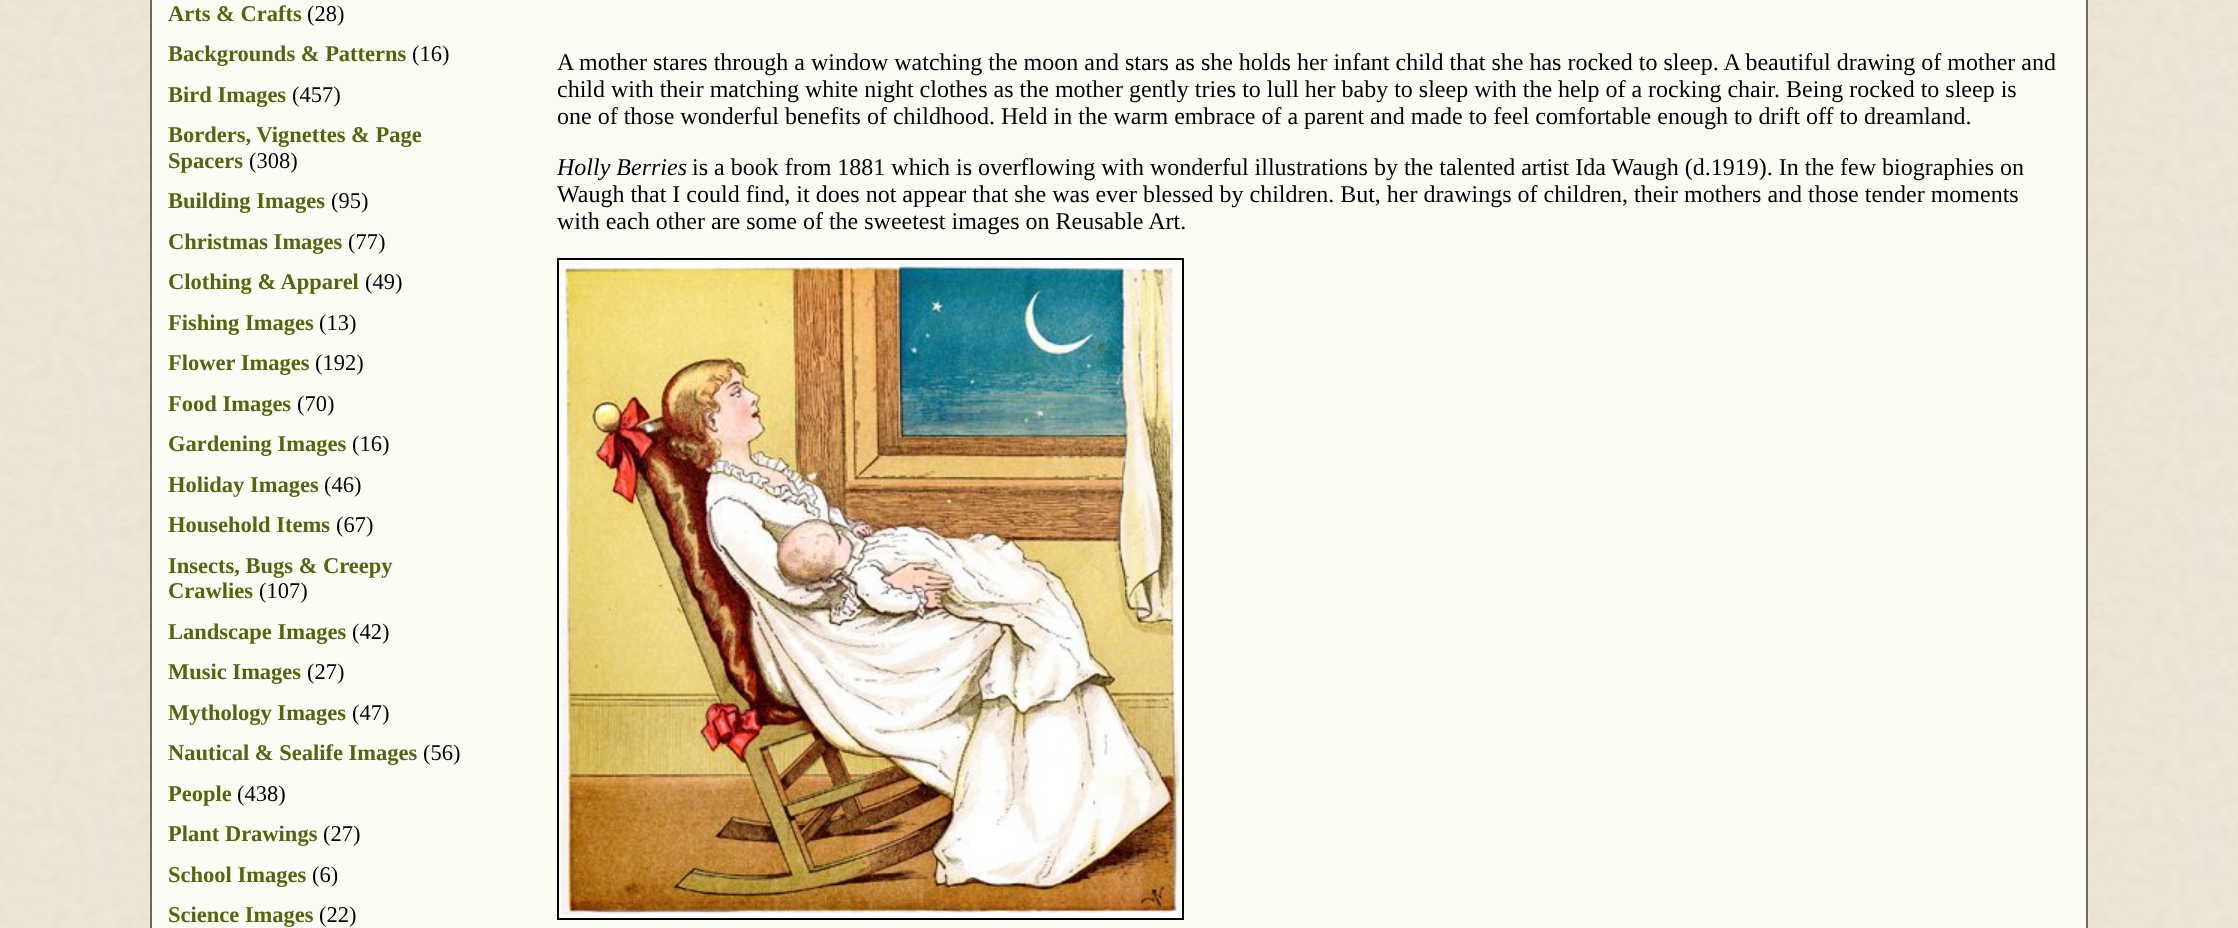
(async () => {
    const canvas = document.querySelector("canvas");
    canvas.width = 2238;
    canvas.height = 928;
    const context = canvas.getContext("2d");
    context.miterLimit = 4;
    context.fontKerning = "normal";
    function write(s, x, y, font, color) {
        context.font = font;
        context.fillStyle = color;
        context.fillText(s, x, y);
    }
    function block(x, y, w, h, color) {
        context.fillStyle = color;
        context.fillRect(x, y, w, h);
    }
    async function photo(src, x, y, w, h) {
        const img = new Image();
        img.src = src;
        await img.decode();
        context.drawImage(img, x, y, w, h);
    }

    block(0, 0, 2238, 928, "rgb(255, 255, 255)");
    await photo("media/1.png", 0, 0, 2238, 928);
    context.fillStyle = "rgb(251, 252, 244)";
    context.beginPath();
    context.rect(151, -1, 1936, 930);
    context.fill();
    context.strokeStyle = "rgb(113, 106, 85)";
    context.lineWidth = 2;
    context.stroke();
    write("Arts & Crafts", 168, 21, "bold 22.5px Liberation Serif", "rgb(82, 101, 15)");
    write("(28)", 307, 21, "22.5px Liberation Serif", "rgb(0, 0, 0)");
    write("Backgrounds & Patterns", 168, 61, "bold 22.5px Liberation Serif", "rgb(82, 101, 15)");
    write("(16)", 412, 61, "22.5px Liberation Serif", "rgb(0, 0, 0)");
    write("Bird Images", 168, 102, "bold 22.5px Liberation Serif", "rgb(82, 101, 15)");
    write("(457)", 292, 102, "22.5px Liberation Serif", "rgb(0, 0, 0)");
    write("Borders, Vignettes & Page", 168, 142, "bold 22.5px Liberation Serif", "rgb(82, 101, 15)");
    write("Spacers", 168, 168, "bold 22.5px Liberation Serif", "rgb(82, 101, 15)");
    write("(308)", 249, 168, "22.5px Liberation Serif", "rgb(0, 0, 0)");
    write("Building Images", 168, 208, "bold 22.5px Liberation Serif", "rgb(82, 101, 15)");
    write("(95)", 331, 208, "22.5px Liberation Serif", "rgb(0, 0, 0)");
    write("Christmas Images", 168, 249, "bold 22.5px Liberation Serif", "rgb(82, 101, 15)");
    write("(77)", 348, 249, "22.5px Liberation Serif", "rgb(0, 0, 0)");
    write("Clothing & Apparel", 168, 289, "bold 22.5px Liberation Serif", "rgb(82, 101, 15)");
    write("(49)", 365, 289, "22.5px Liberation Serif", "rgb(0, 0, 0)");
    write("Fishing Images", 168, 330, "bold 22.5px Liberation Serif", "rgb(82, 101, 15)");
    write("(13)", 319, 330, "22.5px Liberation Serif", "rgb(0, 0, 0)");
    write("Flower Images", 168, 370, "bold 22.5px Liberation Serif", "rgb(82, 101, 15)");
    write("(192)", 315, 370, "22.5px Liberation Serif", "rgb(0, 0, 0)");
    write("Food Images", 168, 411, "bold 22.5px Liberation Serif", "rgb(82, 101, 15)");
    write("(70)", 297, 411, "22.5px Liberation Serif", "rgb(0, 0, 0)");
    write("Gardening Images", 168, 451, "bold 22.5px Liberation Serif", "rgb(82, 101, 15)");
    write("(16)", 352, 451, "22.5px Liberation Serif", "rgb(0, 0, 0)");
    write("Holiday Images", 168, 492, "bold 22.5px Liberation Serif", "rgb(82, 101, 15)");
    write("(46)", 324, 492, "22.5px Liberation Serif", "rgb(0, 0, 0)");
    write("Household Items", 168, 532, "bold 22.5px Liberation Serif", "rgb(82, 101, 15)");
    write("(67)", 336, 532, "22.5px Liberation Serif", "rgb(0, 0, 0)");
    write("Insects, Bugs & Creepy", 168, 573, "bold 22.5px Liberation Serif", "rgb(82, 101, 15)");
    write("Crawlies", 168, 598, "bold 22.5px Liberation Serif", "rgb(82, 101, 15)");
    write("(107)", 259, 598, "22.5px Liberation Serif", "rgb(0, 0, 0)");
    write("Landscape Images", 168, 639, "bold 22.5px Liberation Serif", "rgb(82, 101, 15)");
    write("(42)", 352, 639, "22.5px Liberation Serif", "rgb(0, 0, 0)");
    write("Music Images", 168, 679, "bold 22.5px Liberation Serif", "rgb(82, 101, 15)");
    write("(27)", 307, 679, "22.5px Liberation Serif", "rgb(0, 0, 0)");
    write("Mythology Images", 168, 720, "bold 22.5px Liberation Serif", "rgb(82, 101, 15)");
    write("(47)", 352, 720, "22.5px Liberation Serif", "rgb(0, 0, 0)");
    write("Nautical & Sealife Images", 168, 760, "bold 22.5px Liberation Serif", "rgb(82, 101, 15)");
    write("(56)", 423, 760, "22.5px Liberation Serif", "rgb(0, 0, 0)");
    write("People", 168, 801, "bold 22.5px Liberation Serif", "rgb(82, 101, 15)");
    write("(438)", 237, 801, "22.5px Liberation Serif", "rgb(0, 0, 0)");
    write("Plant Drawings", 168, 841, "bold 22.5px Liberation Serif", "rgb(82, 101, 15)");
    write("(27)", 323, 841, "22.5px Liberation Serif", "rgb(0, 0, 0)");
    write("School Images", 168, 882, "bold 22.5px Liberation Serif", "rgb(82, 101, 15)");
    write("(6)", 312, 882, "22.5px Liberation Serif", "rgb(0, 0, 0)");
    write("Science Images", 168, 922, "bold 22.5px Liberation Serif", "rgb(82, 101, 15)");
    write("(22)", 319, 922, "22.5px Liberation Serif", "rgb(0, 0, 0)");
    write("A mother stares through a window watching the moon and stars as she holds her infant child that she has rocked to sleep. A beautiful drawing of mother and", 557, 70, "24px Liberation Serif", "rgb(0, 0, 0)");
    write("child with their matching white night clothes as the mother gently tries to lull her baby to sleep with the help of a rocking chair. Being rocked to sleep is", 557, 97, "24px Liberation Serif", "rgb(0, 0, 0)");
    write("one of those wonderful benefits of childhood. Held in the warm embrace of a parent and made to feel comfortable enough to drift off to dreamland.", 557, 124, "24px Liberation Serif", "rgb(0, 0, 0)");
    write("Holly Berries", 557, 175, "italic 24px Liberation Serif", "rgb(0, 0, 0)");
    write("is a book from 1881 which is overflowing with wonderful illustrations by the talented artist Ida Waugh (d.1919). In the few biographies on", 692, 175, "24px Liberation Serif", "rgb(0, 0, 0)");
    write("Waugh that I could find, it does not appear that she was ever blessed by children. But, her drawings of children, their mothers and those tender moments", 557, 202, "24px Liberation Serif", "rgb(0, 0, 0)");
    write("with each other are some of the sweetest images on Reusable Art.", 557, 229, "24px Liberation Serif", "rgb(0, 0, 0)");
    context.strokeStyle = "rgb(0, 0, 0)";
    context.strokeRect(558, 259, 625, 660);
    await photo("media/2.png", 561, 262, 618, 653);
})();
